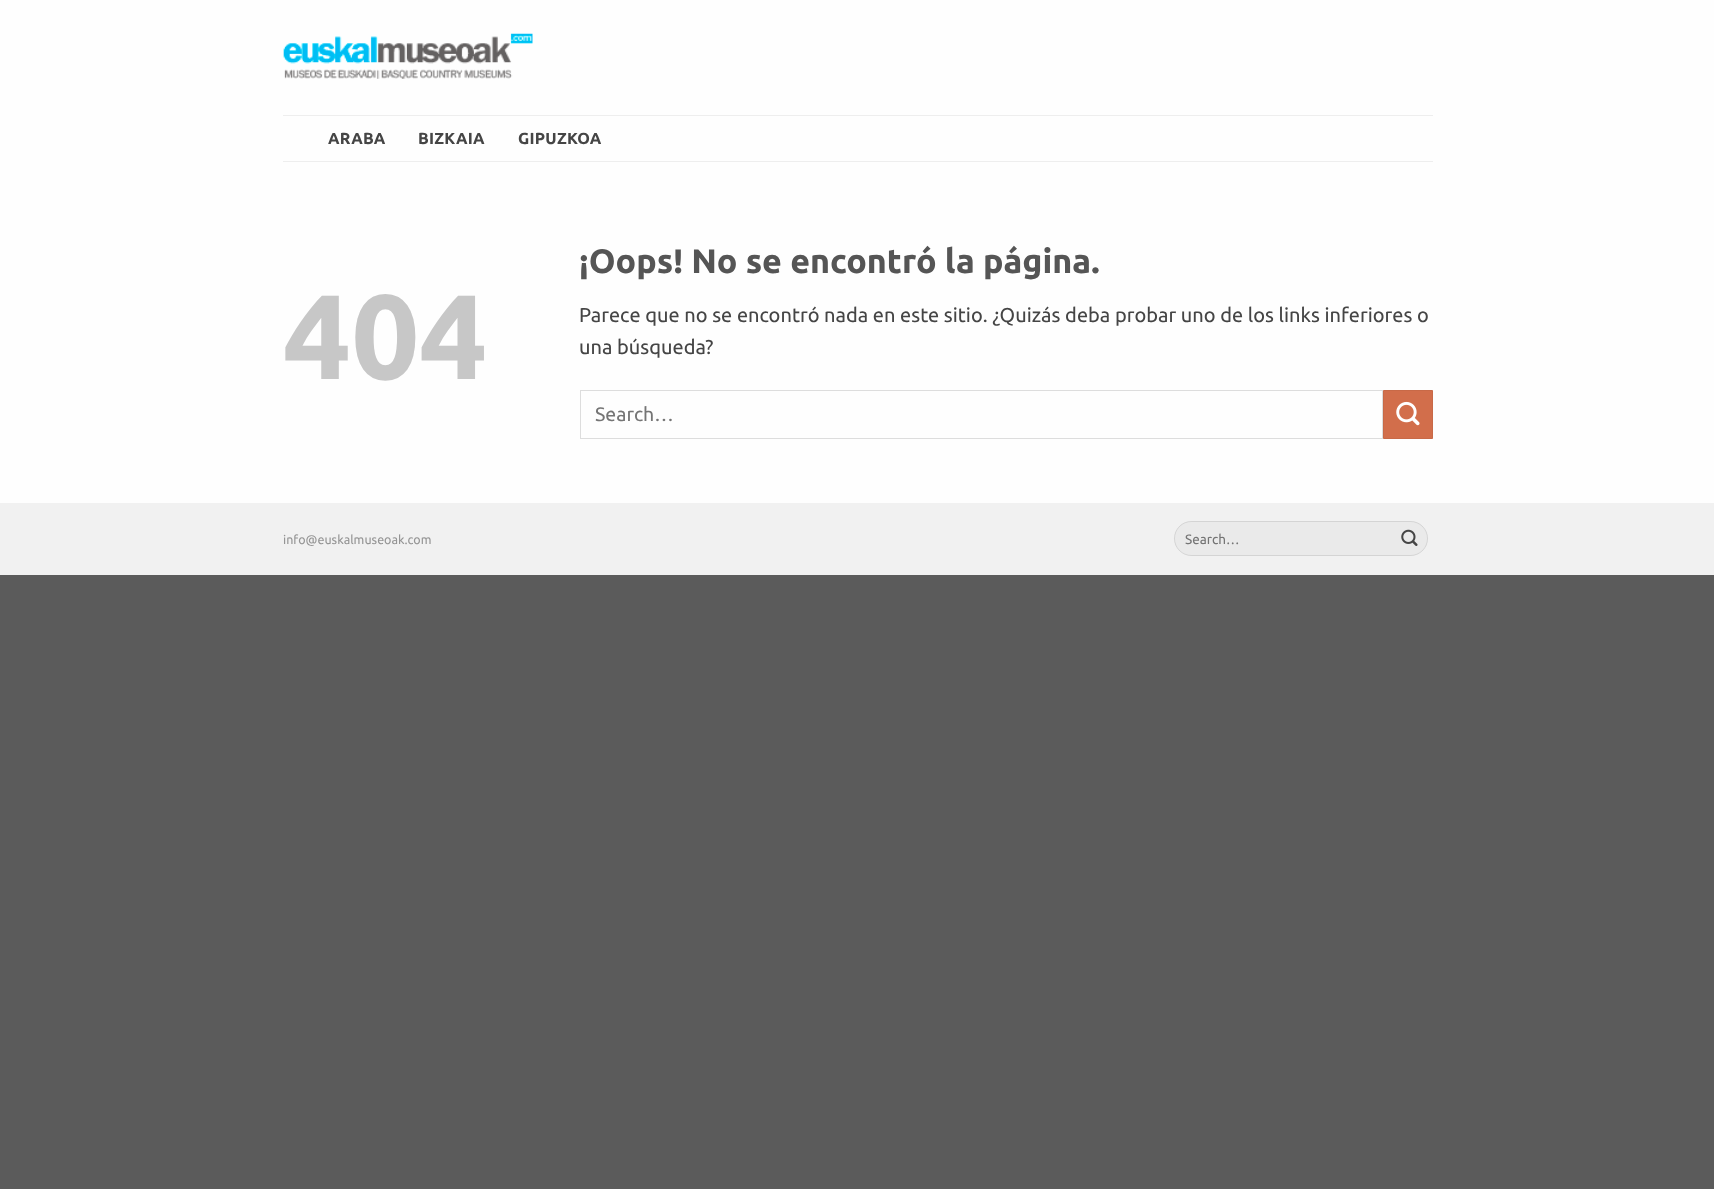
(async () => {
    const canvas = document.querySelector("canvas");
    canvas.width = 1714;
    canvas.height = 1189;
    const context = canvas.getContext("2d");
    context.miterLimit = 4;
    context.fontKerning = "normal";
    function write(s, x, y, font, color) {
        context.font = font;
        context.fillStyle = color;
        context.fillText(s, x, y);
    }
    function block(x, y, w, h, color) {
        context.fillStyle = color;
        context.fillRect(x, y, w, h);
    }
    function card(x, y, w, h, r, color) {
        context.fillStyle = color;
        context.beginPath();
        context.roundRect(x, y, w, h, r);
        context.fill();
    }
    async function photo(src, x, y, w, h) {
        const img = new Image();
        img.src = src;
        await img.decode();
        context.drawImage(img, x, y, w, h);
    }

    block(0, 0, 1714, 1189, "rgb(91, 91, 91)");
    block(0, 0, 1714, 503, "rgb(254, 254, 254)");
    await photo("media/1.png", 283, 33, 250, 46);
    block(283, 115, 1150, 1, "rgb(238, 238, 238)");
    block(283, 161, 1150, 1, "rgb(238, 238, 238)");
    context.letterSpacing = "0.25px";
    write("ARABA", 328, 144, "bold 16px Ubuntu", "rgb(69, 69, 69)");
    write("BIZKAIA", 418, 144, "bold 16px Ubuntu", "rgb(69, 69, 69)");
    write("GIPUZKOA", 518, 144, "bold 16px Ubuntu", "rgb(69, 69, 69)");
    context.letterSpacing = "0px";
    write("404", 283, 379, "bold 120px Ubuntu", "rgb(199, 199, 199)");
    write("¡Oops! No se encontró la página.", 579, 273, "bold 34px Ubuntu", "rgb(85, 85, 85)");
    write("Parece que no se encontró nada en este sitio. ¿Quizás deba probar uno de los links inferiores o", 579, 322, "20px Ubuntu", "rgb(69, 69, 69)");
    write("una búsqueda?", 579, 354, "20px Ubuntu", "rgb(69, 69, 69)");
    context.strokeStyle = "rgb(221, 221, 221)";
    context.strokeRect(580.5, 390.5, 802, 48);
    write("Search…", 595, 421, "19.5px Ubuntu", "rgb(117, 117, 117)");
    context.fillStyle = "rgb(210, 110, 75)";
    context.beginPath();
    context.rect(1383.5, 390.5, 49, 48);
    context.fill();
    context.strokeStyle = "rgb(200, 105, 71)";
    context.stroke();
    await photo("media/2.png", 1396, 401, 24, 25);
    block(0, 503, 1714, 72, "rgb(241, 241, 241)");
    write("info@euskalmuseoak.com", 283, 544, "12.5px Ubuntu", "rgb(149, 149, 149)");
    card(1174, 521, 254, 35, 17.5, "rgb(234, 234, 234)");
    context.beginPath();
    context.roundRect(1174.5, 521.5, 253, 34, 17);
    context.strokeStyle = "rgba(0, 0, 0, 0.09)";
    context.stroke();
    write("Search…", 1185, 544, "13.5px Ubuntu", "rgb(117, 117, 117)");
    await photo("media/3.png", 1401, 529, 17, 17);
})();
